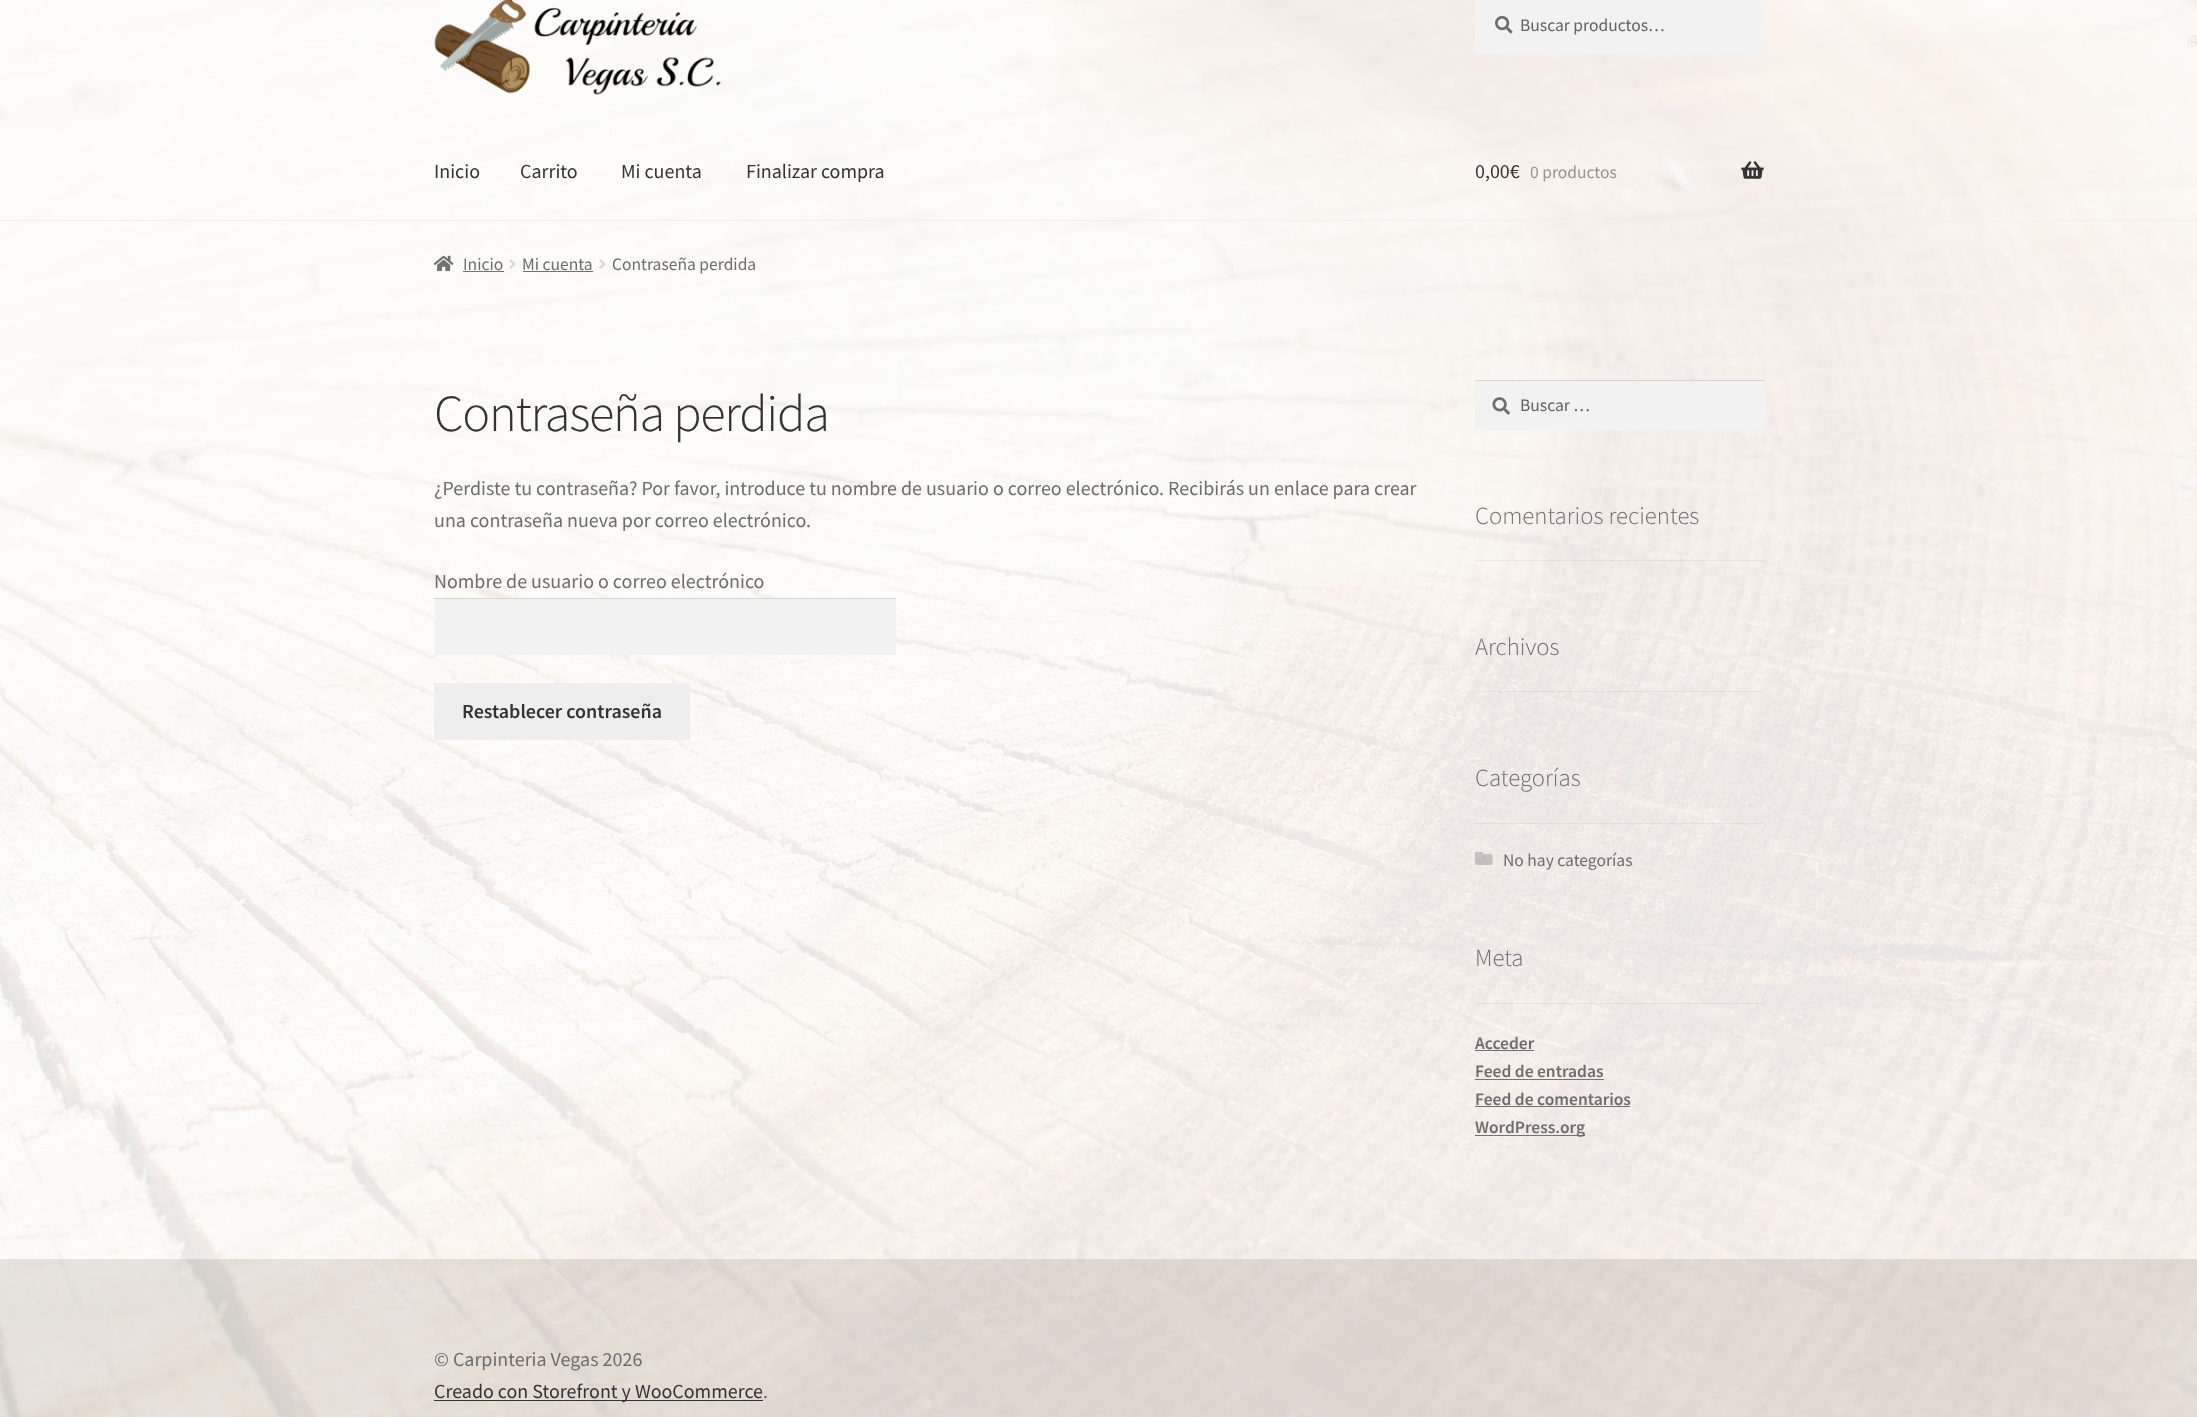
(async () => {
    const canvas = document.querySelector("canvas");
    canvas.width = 2197;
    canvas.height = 1417;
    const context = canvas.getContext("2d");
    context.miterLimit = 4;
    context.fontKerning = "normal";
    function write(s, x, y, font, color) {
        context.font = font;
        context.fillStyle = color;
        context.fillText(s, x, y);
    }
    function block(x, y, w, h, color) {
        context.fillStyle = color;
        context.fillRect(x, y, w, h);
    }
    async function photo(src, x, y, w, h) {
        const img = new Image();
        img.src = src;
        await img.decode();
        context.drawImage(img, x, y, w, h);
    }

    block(0, 0, 2197, 1417, "rgb(255, 255, 255)");
    await photo("media/1.png", 0, 221, 2197, 1196);
    await photo("media/2.png", 0, 0, 2197, 220);
    block(0, 220, 2197, 1, "rgb(240, 240, 240)");
    await photo("media/3.png", 434, 0, 287, 95);
    block(1475, 0, 289, 54, "rgb(242, 242, 242)");
    await photo("media/4.png", 1495, 16, 18, 18);
    write("Buscar productos…", 1520, 31, "17.5px Source Sans Pro", "rgb(97, 97, 97)");
    write("Inicio", 434, 178, "20px Source Sans Pro", "rgb(51, 51, 51)");
    write("Carrito", 520, 178, "20px Source Sans Pro", "rgb(51, 51, 51)");
    write("Mi cuenta", 621, 178, "20px Source Sans Pro", "rgb(51, 51, 51)");
    write("Finalizar compra", 746, 178, "20px Source Sans Pro", "rgb(51, 51, 51)");
    write("0,00€", 1475, 178, "20px Source Sans Pro", "rgb(51, 51, 51)");
    write("0 productos", 1530, 178, "17.5px Source Sans Pro", "rgb(149, 146, 144)");
    await photo("media/5.png", 1741, 161, 23, 18);
    await photo("media/6.png", 433, 255, 21, 17);
    write("Inicio", 463, 270, "17.5px Source Sans Pro", "rgb(109, 109, 109)");
    block(463, 271, 41, 1, "rgb(114, 114, 114)");
    await photo("media/7.png", 509, 259, 7, 10);
    write("Mi cuenta", 522, 270, "17.5px Source Sans Pro", "rgb(109, 109, 109)");
    block(523, 271, 70, 1, "rgb(114, 114, 114)");
    await photo("media/8.png", 599, 259, 7, 10);
    write("Contraseña perdida", 612, 270, "17.5px Source Sans Pro", "rgb(109, 109, 109)");
    context.letterSpacing = "-1.25px";
    write("Contraseña perdida", 434, 431, "300 52.25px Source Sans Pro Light", "rgb(51, 51, 51)");
    context.letterSpacing = "0px";
    write("¿Perdiste tu contraseña? Por favor, introduce tu nombre de usuario o correo electrónico. Recibirás un enlace para crear", 434, 495, "20px Source Sans Pro", "rgb(109, 109, 109)");
    write("una contraseña nueva por correo electrónico.", 434, 527, "20px Source Sans Pro", "rgb(109, 109, 109)");
    write("Nombre de usuario o correo electrónico", 434, 588, "20px Source Sans Pro", "rgb(109, 109, 109)");
    block(434, 599, 462, 56, "rgb(242, 242, 242)");
    block(434, 598, 462, 1, "rgb(212, 212, 212)");
    block(434, 683, 256, 57, "rgb(238, 238, 238)");
    write("Restablecer contraseña", 462, 718, "600 20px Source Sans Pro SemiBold", "rgb(51, 51, 51)");
    block(1475, 381, 289, 49, "rgb(242, 242, 242)");
    await photo("media/9.png", 1492, 397, 18, 18);
    block(1475, 380, 289, 1, "rgb(212, 212, 212)");
    write("Buscar …", 1520, 411, "17.5px Source Sans Pro", "rgb(97, 97, 97)");
    block(1475, 560, 289, 1, "rgba(0, 0, 0, 0.05)");
    write("Comentarios recientes", 1475, 524, "300 24.75px Source Sans Pro Light", "rgb(109, 109, 109)");
    block(1475, 691, 289, 1, "rgba(0, 0, 0, 0.05)");
    write("Archivos", 1475, 655, "300 24.75px Source Sans Pro Light", "rgb(109, 109, 109)");
    block(1475, 823, 289, 1, "rgba(0, 0, 0, 0.05)");
    write("Categorías", 1475, 786, "300 24.75px Source Sans Pro Light", "rgb(109, 109, 109)");
    await photo("media/10.png", 1475, 851, 18, 14);
    write("No hay categorías", 1503, 866, "17.5px Source Sans Pro", "rgb(109, 109, 109)");
    block(1475, 1003, 289, 1, "rgba(0, 0, 0, 0.05)");
    write("Meta", 1475, 966, "300 24.75px Source Sans Pro Light", "rgb(109, 109, 109)");
    write("Acceder", 1475, 1049, "600 17.5px Source Sans Pro SemiBold", "rgb(109, 109, 109)");
    block(1475, 1050, 59, 1, "rgb(114, 114, 114)");
    write("Feed de entradas", 1475, 1077, "600 17.5px Source Sans Pro SemiBold", "rgb(109, 109, 109)");
    block(1475, 1079, 129, 1, "rgb(114, 114, 114)");
    write("Feed de comentarios", 1475, 1105, "600 17.5px Source Sans Pro SemiBold", "rgb(109, 109, 109)");
    block(1475, 1106, 155, 1, "rgb(114, 114, 114)");
    block(1475, 1135, 110, 1, "rgb(114, 114, 114)");
    write("WordPress.org", 1475, 1133, "600 17.5px Source Sans Pro SemiBold", "rgb(109, 109, 109)");
    block(0, 1259, 2197, 158, "rgba(50, 30, 0, 0.1)");
    write("© Carpinteria Vegas 2026", 434, 1366, "20px Source Sans Pro", "rgb(109, 109, 109)");
    block(434, 1400, 329, 1, "rgb(51, 51, 51)");
    write("Creado con Storefront y WooCommerce", 434, 1398, "20px Source Sans Pro", "rgb(51, 51, 51)");
    write(".", 763, 1398, "20px Source Sans Pro", "rgb(109, 109, 109)");
})();
